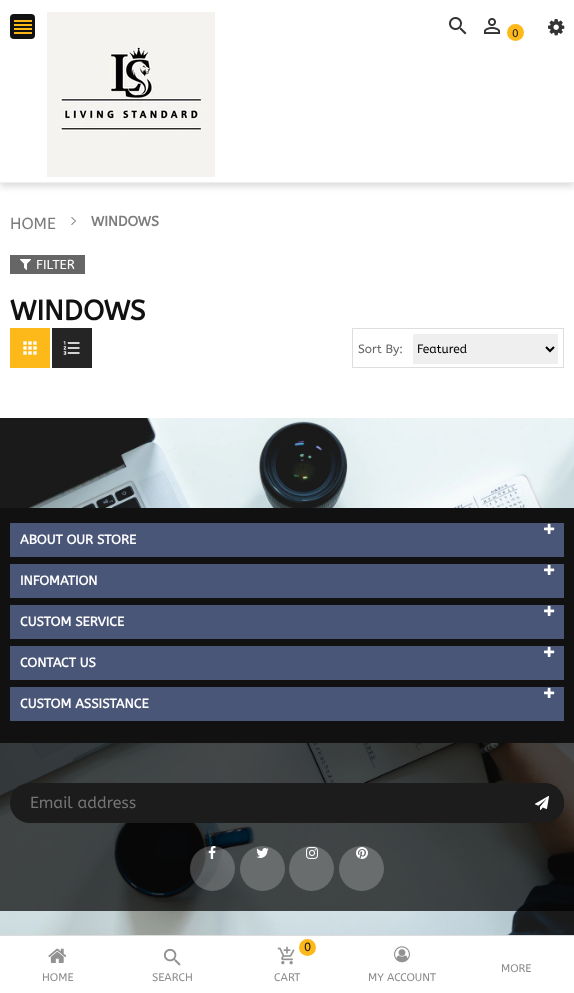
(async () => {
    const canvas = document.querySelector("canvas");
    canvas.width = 574;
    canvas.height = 993;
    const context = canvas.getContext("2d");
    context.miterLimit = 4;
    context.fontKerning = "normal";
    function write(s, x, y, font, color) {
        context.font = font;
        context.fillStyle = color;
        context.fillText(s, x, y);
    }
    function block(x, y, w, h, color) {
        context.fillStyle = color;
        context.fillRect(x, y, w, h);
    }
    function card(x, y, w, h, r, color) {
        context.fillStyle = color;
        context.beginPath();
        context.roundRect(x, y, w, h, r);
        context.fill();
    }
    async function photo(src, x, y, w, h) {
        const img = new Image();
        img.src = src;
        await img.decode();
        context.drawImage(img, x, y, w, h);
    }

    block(0, 0, 574, 993, "rgb(255, 255, 255)");
    context.save();
    context.beginPath();
    context.rect(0, 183, 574, 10);
    context.clip();
    context.fillStyle = "rgba(205, 205, 205, 0.65)";
    context.filter = "blur(3px)";
    context.beginPath();
    context.rect(0, 4, 574, 183);
    context.fill();
    context.filter = "none";
    context.restore();
    block(0, 182, 574, 1, "rgb(238, 238, 238)");
    await photo("media/1.png", 47, 12, 168, 165);
    card(10, 14, 25, 25, 4, "rgb(17, 17, 17)");
    await photo("media/2.png", 14, 20, 18, 14);
    await photo("media/3.png", 449, 17, 18, 18);
    await photo("media/4.png", 484, 18, 16, 16);
    context.fillStyle = "rgb(253, 184, 25)";
    context.beginPath();
    context.arc(515.5, 32.5, 8.5, 0, Math.PI * 2);
    context.fill();
    write("0", 512, 37, "11px ABeeZee", "rgb(17, 17, 17)");
    await photo("media/5.png", 548, 19, 17, 17);
    write("HOME", 10, 229, "16px ABeeZee", "rgb(125, 125, 125)");
    context.beginPath();
    context.moveTo(72, 217);
    context.lineTo(76, 221);
    context.lineTo(75.5, 221.5);
    context.lineTo(71, 217.5);
    context.closePath();
    context.fill();
    context.beginPath();
    context.moveTo(75.5, 220.5);
    context.lineTo(76, 221);
    context.lineTo(72, 225);
    context.lineTo(71, 224.5);
    context.closePath();
    context.fill();
    write("WINDOWS", 91, 226, "bold 14px ABeeZee", "rgb(125, 125, 125)");
    block(10, 255, 75, 19, "rgb(102, 102, 102)");
    await photo("media/6.png", 20, 259, 11, 11);
    write("FILTER", 36, 269, "13px ABeeZee", "rgb(255, 255, 255)");
    write("WINDOWS", 10, 320, "bold 28px ABeeZee", "rgb(17, 17, 17)");
    block(10, 328, 40, 40, "rgb(253, 184, 25)");
    await photo("media/7.png", 23, 341, 14, 14);
    block(52, 328, 40, 40, "rgb(37, 37, 37)");
    await photo("media/8.png", 63, 341, 17, 14);
    context.strokeStyle = "rgb(221, 221, 221)";
    context.strokeRect(352.5, 328.5, 211, 39);
    write("Sort By:", 358, 353, "12px ABeeZee", "rgb(102, 102, 102)");
    block(413, 334, 145, 30, "rgb(239, 239, 239)");
    context.beginPath();
    context.moveTo(546, 347);
    context.lineTo(550, 351);
    context.lineTo(554, 347);
    context.strokeStyle = "rgb(0, 0, 0)";
    context.lineWidth = 2;
    context.stroke();
    write("Featured", 417, 353, "12px ABeeZee", "rgb(0, 0, 0)");
    await photo("media/9.png", 0, 418, 574, 517);
    block(0, 508, 574, 235, "rgb(17, 17, 17)");
    block(10, 523, 554, 34, "rgb(74, 86, 120)");
    await photo("media/10.png", 544, 523, 11, 11);
    write("ABOUT OUR STORE", 20, 544, "bold 13px ABeeZee", "rgb(255, 255, 255)");
    block(10, 564, 554, 34, "rgb(74, 86, 120)");
    await photo("media/10.png", 544, 564, 11, 11);
    write("INFOMATION", 20, 585, "bold 13px ABeeZee", "rgb(255, 255, 255)");
    block(10, 605, 554, 34, "rgb(74, 86, 120)");
    await photo("media/10.png", 544, 605, 11, 11);
    write("CUSTOM SERVICE", 20, 626, "bold 13px ABeeZee", "rgb(255, 255, 255)");
    block(10, 646, 554, 34, "rgb(74, 86, 120)");
    await photo("media/10.png", 544, 646, 11, 11);
    write("CONTACT US", 20, 667, "bold 13px ABeeZee", "rgb(255, 255, 255)");
    block(10, 687, 554, 34, "rgb(74, 86, 120)");
    await photo("media/10.png", 544, 687, 11, 11);
    write("CUSTOM ASSISTANCE", 20, 708, "bold 13px ABeeZee", "rgb(255, 255, 255)");
    block(0, 743, 574, 168, "rgba(0, 0, 0, 0.7)");
    card(10, 783, 554, 40, 20, "rgb(28, 28, 28)");
    write("Email address", 30, 808, "16px ABeeZee", "rgb(117, 117, 117)");
    card(520, 783, 44, 40, 20, "rgb(28, 28, 28)");
    await photo("media/11.png", 535, 796, 14, 14);
    context.fillStyle = "rgba(204, 204, 204, 0.3)";
    context.beginPath();
    context.arc(212.5, 868.5, 22.5, 0, Math.PI * 2);
    context.fill();
    await photo("media/12.png", 208, 846, 8, 13);
    context.fillStyle = "rgb(105, 108, 109)";
    context.beginPath();
    context.arc(262.5, 868.5, 22.5, 0, Math.PI * 2);
    context.fill();
    await photo("media/13.png", 256, 848, 13, 10);
    context.fillStyle = "rgb(106, 109, 110)";
    context.beginPath();
    context.arc(311.5, 868.5, 22.5, 0, Math.PI * 2);
    context.fill();
    await photo("media/14.png", 306, 847, 12, 12);
    context.beginPath();
    context.arc(361.5, 868.5, 22.5, 0, Math.PI * 2);
    context.fill();
    await photo("media/15.png", 356, 847, 12, 12);
    await photo("media/16.png", 277, 946, 18, 19);
    context.fillStyle = "rgb(253, 184, 25)";
    context.beginPath();
    context.arc(307.5, 947.5, 8.5, 0, Math.PI * 2);
    context.fill();
    write("0", 304, 951, "12px ABeeZee", "rgb(17, 17, 17)");
    write("CART", 274, 981, "11px ABeeZee", "rgb(141, 141, 141)");
    write("MORE", 501, 972, "11px ABeeZee", "rgb(141, 141, 141)");
    block(0, 935, 574, 1, "rgb(221, 221, 221)");
    await photo("media/17.png", 48, 948, 19, 15);
    write("HOME", 42, 981, "11px ABeeZee", "rgb(141, 141, 141)");
    await photo("media/18.png", 163, 948, 18, 18);
    write("SEARCH", 152, 981, "11px ABeeZee", "rgb(141, 141, 141)");
    await photo("media/19.png", 394, 946, 16, 17);
    write("MY ACCOUNT", 368, 981, "11px ABeeZee", "rgb(141, 141, 141)");
})();
